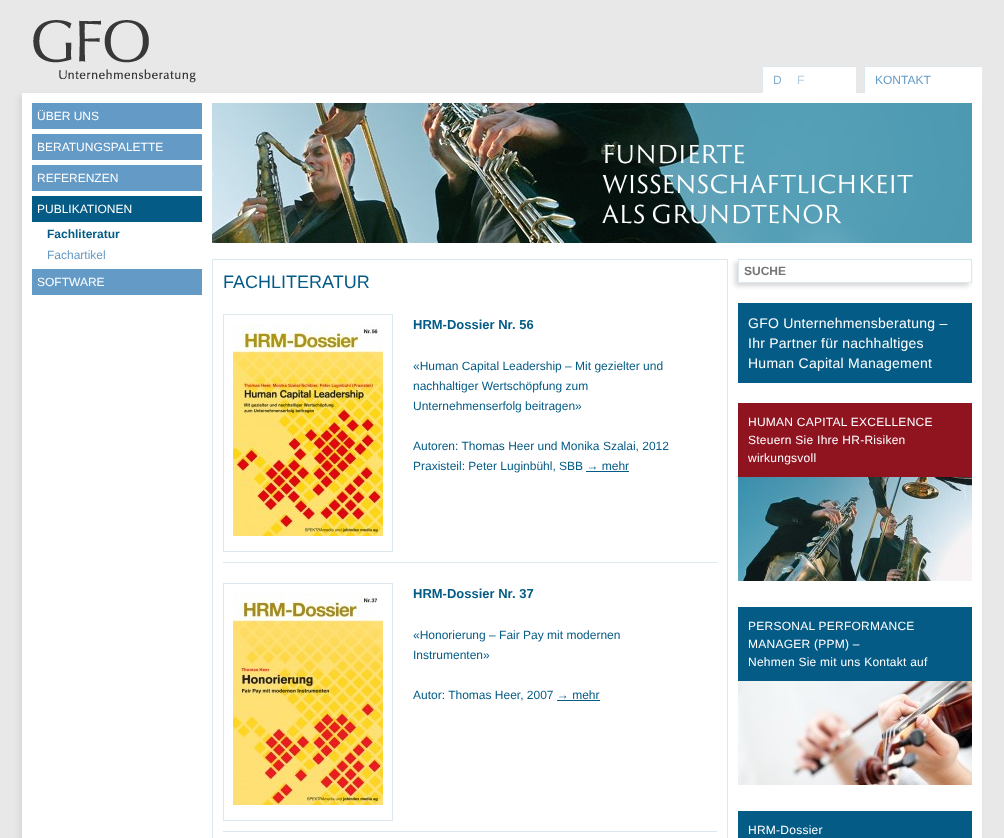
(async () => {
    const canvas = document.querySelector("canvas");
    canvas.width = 1004;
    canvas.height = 838;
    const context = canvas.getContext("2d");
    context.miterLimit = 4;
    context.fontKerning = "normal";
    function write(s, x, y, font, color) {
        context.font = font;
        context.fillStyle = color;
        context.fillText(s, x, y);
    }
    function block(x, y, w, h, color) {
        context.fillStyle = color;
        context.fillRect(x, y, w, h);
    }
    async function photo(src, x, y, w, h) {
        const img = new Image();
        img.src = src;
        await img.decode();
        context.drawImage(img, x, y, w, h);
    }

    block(0, 0, 1004, 838, "rgb(232, 232, 232)");
    await photo("media/1.png", 33, 20, 163, 63);
    context.fillStyle = "rgb(214, 214, 214)";
    context.filter = "blur(2.5px)";
    context.beginPath();
    context.rect(19, 96, 960, 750);
    context.fill();
    context.filter = "none";
    block(763, 67, 93, 26, "rgb(255, 255, 255)");
    block(762, 66, 94, 1, "rgb(221, 232, 238)");
    block(762, 66, 1, 27, "rgb(221, 232, 238)");
    write("D", 773, 84, "12px Liberation Sans", "rgb(131, 174, 209)");
    write("F", 797, 84, "12px Liberation Sans", "rgb(178, 205, 227)");
    block(865, 67, 117, 26, "rgb(255, 255, 255)");
    block(864, 66, 118, 1, "rgb(221, 232, 238)");
    block(864, 66, 1, 27, "rgb(221, 232, 238)");
    write("KONTAKT", 875, 84, "12px Liberation Sans", "rgb(100, 154, 198)");
    block(22, 93, 960, 745, "rgb(255, 255, 255)");
    block(32, 103, 170, 26, "rgb(100, 154, 198)");
    write("ÜBER UNS", 37, 120, "12px Liberation Sans", "rgb(255, 255, 255)");
    block(32, 134, 170, 26, "rgb(100, 154, 198)");
    write("BERATUNGSPALETTE", 37, 151, "12px Liberation Sans", "rgb(255, 255, 255)");
    block(32, 165, 170, 26, "rgb(100, 154, 198)");
    write("REFERENZEN", 37, 182, "12px Liberation Sans", "rgb(255, 255, 255)");
    block(32, 196, 170, 26, "rgb(4, 91, 134)");
    write("PUBLIKATIONEN", 37, 213, "12px Liberation Sans", "rgb(255, 255, 255)");
    write("Fachliteratur", 47, 238, "bold 12px Liberation Sans", "rgb(4, 91, 134)");
    write("Fachartikel", 47, 259, "12px Liberation Sans", "rgb(100, 154, 198)");
    block(32, 269, 170, 26, "rgb(100, 154, 198)");
    write("SOFTWARE", 37, 286, "12px Liberation Sans", "rgb(255, 255, 255)");
    await photo("media/2.png", 212, 103, 760, 140);
    write("FUNDIERTE", 602, 163, "24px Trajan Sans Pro", "rgb(255, 255, 255)");
    write("WISSENSCHAFTLICHKEIT", 602, 193, "24px Trajan Sans Pro", "rgb(255, 255, 255)");
    write("ALS GRUNDTENOR", 602, 223, "24px Trajan Sans Pro", "rgb(255, 255, 255)");
    context.strokeStyle = "rgb(221, 232, 238)";
    context.strokeRect(212.5, 259.5, 515, 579);
    write("FACHLITERATUR", 223, 288, "18px Liberation Sans", "rgb(4, 91, 134)");
    block(223, 562, 494, 1, "rgb(221, 232, 238)");
    context.strokeRect(223.5, 314.5, 169, 237);
    await photo("media/3.png", 233, 324, 150, 212);
    write("HRM-Dossier Nr. 56", 413, 329, "bold 13px Liberation Sans", "rgb(4, 91, 134)");
    write("«Human Capital Leadership – Mit gezielter und", 413, 370, "12px Liberation Sans", "rgb(4, 91, 134)");
    write("nachhaltiger Wertschöpfung zum", 413, 390, "12px Liberation Sans", "rgb(4, 91, 134)");
    write("Unternehmenserfolg beitragen»", 413, 410, "12px Liberation Sans", "rgb(4, 91, 134)");
    write("Autoren: Thomas Heer und Monika Szalai, 2012", 413, 450, "12px Liberation Sans", "rgb(4, 91, 134)");
    write("Praxisteil: Peter Luginbühl, SBB → mehr", 413, 470, "12px Liberation Sans", "rgb(4, 91, 134)");
    block(586, 471, 43, 1, "rgb(4, 91, 134)");
    block(223, 831, 494, 1, "rgb(221, 232, 238)");
    context.strokeRect(223.5, 583.5, 169, 237);
    await photo("media/4.png", 233, 593, 150, 212);
    write("HRM-Dossier Nr. 37", 413, 598, "bold 13px Liberation Sans", "rgb(4, 91, 134)");
    write("«Honorierung – Fair Pay mit modernen", 413, 639, "12px Liberation Sans", "rgb(4, 91, 134)");
    write("Instrumenten»", 413, 659, "12px Liberation Sans", "rgb(4, 91, 134)");
    write("Autor: Thomas Heer, 2007 → mehr", 413, 699, "12px Liberation Sans", "rgb(4, 91, 134)");
    block(557, 700, 43, 1, "rgb(4, 91, 134)");
    context.save();
    context.beginPath();
    context.moveTo(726, 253);
    context.lineTo(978, 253);
    context.lineTo(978, 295);
    context.lineTo(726, 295);
    context.closePath();
    context.moveTo(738, 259);
    context.lineTo(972, 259);
    context.lineTo(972, 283);
    context.lineTo(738, 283);
    context.closePath();
    context.clip("evenodd");
    context.fillStyle = "rgb(214, 214, 214)";
    context.filter = "blur(2.5px)";
    context.beginPath();
    context.rect(735, 262, 234, 24);
    context.fill();
    context.filter = "none";
    context.restore();
    context.strokeRect(738.5, 259.5, 233, 23);
    write("SUCHE", 744, 275, "bold 12px Liberation Sans", "rgb(117, 117, 117)");
    block(738, 303, 234, 80, "rgb(4, 91, 134)");
    context.letterSpacing = "0.25px";
    write("GFO Unternehmensberatung –", 748, 328, "14px Liberation Sans", "rgb(255, 255, 255)");
    write("Ihr Partner für nachhaltiges", 748, 348, "14px Liberation Sans", "rgb(255, 255, 255)");
    write("Human Capital Management", 748, 368, "14px Liberation Sans", "rgb(255, 255, 255)");
    block(738, 403, 234, 74, "rgb(144, 19, 32)");
    write("HUMAN CAPITAL EXCELLENCE", 748, 426, "12px Liberation Sans", "rgb(255, 255, 255)");
    write("Steuern Sie Ihre HR-Risiken", 748, 444, "12px Liberation Sans", "rgb(255, 255, 255)");
    write("wirkungsvoll", 748, 462, "12px Liberation Sans", "rgb(255, 255, 255)");
    await photo("media/5.png", 738, 477, 234, 104);
    block(738, 607, 234, 74, "rgb(4, 91, 134)");
    write("PERSONAL PERFORMANCE", 748, 630, "12px Liberation Sans", "rgb(255, 255, 255)");
    write("MANAGER (PPM) –", 748, 648, "12px Liberation Sans", "rgb(255, 255, 255)");
    write("Nehmen Sie mit uns Kontakt auf", 748, 666, "12px Liberation Sans", "rgb(255, 255, 255)");
    await photo("media/6.png", 738, 681, 234, 104);
    block(738, 811, 234, 27, "rgb(4, 91, 134)");
    write("HRM-Dossier", 748, 834, "12px Liberation Sans", "rgb(255, 255, 255)");
})();
